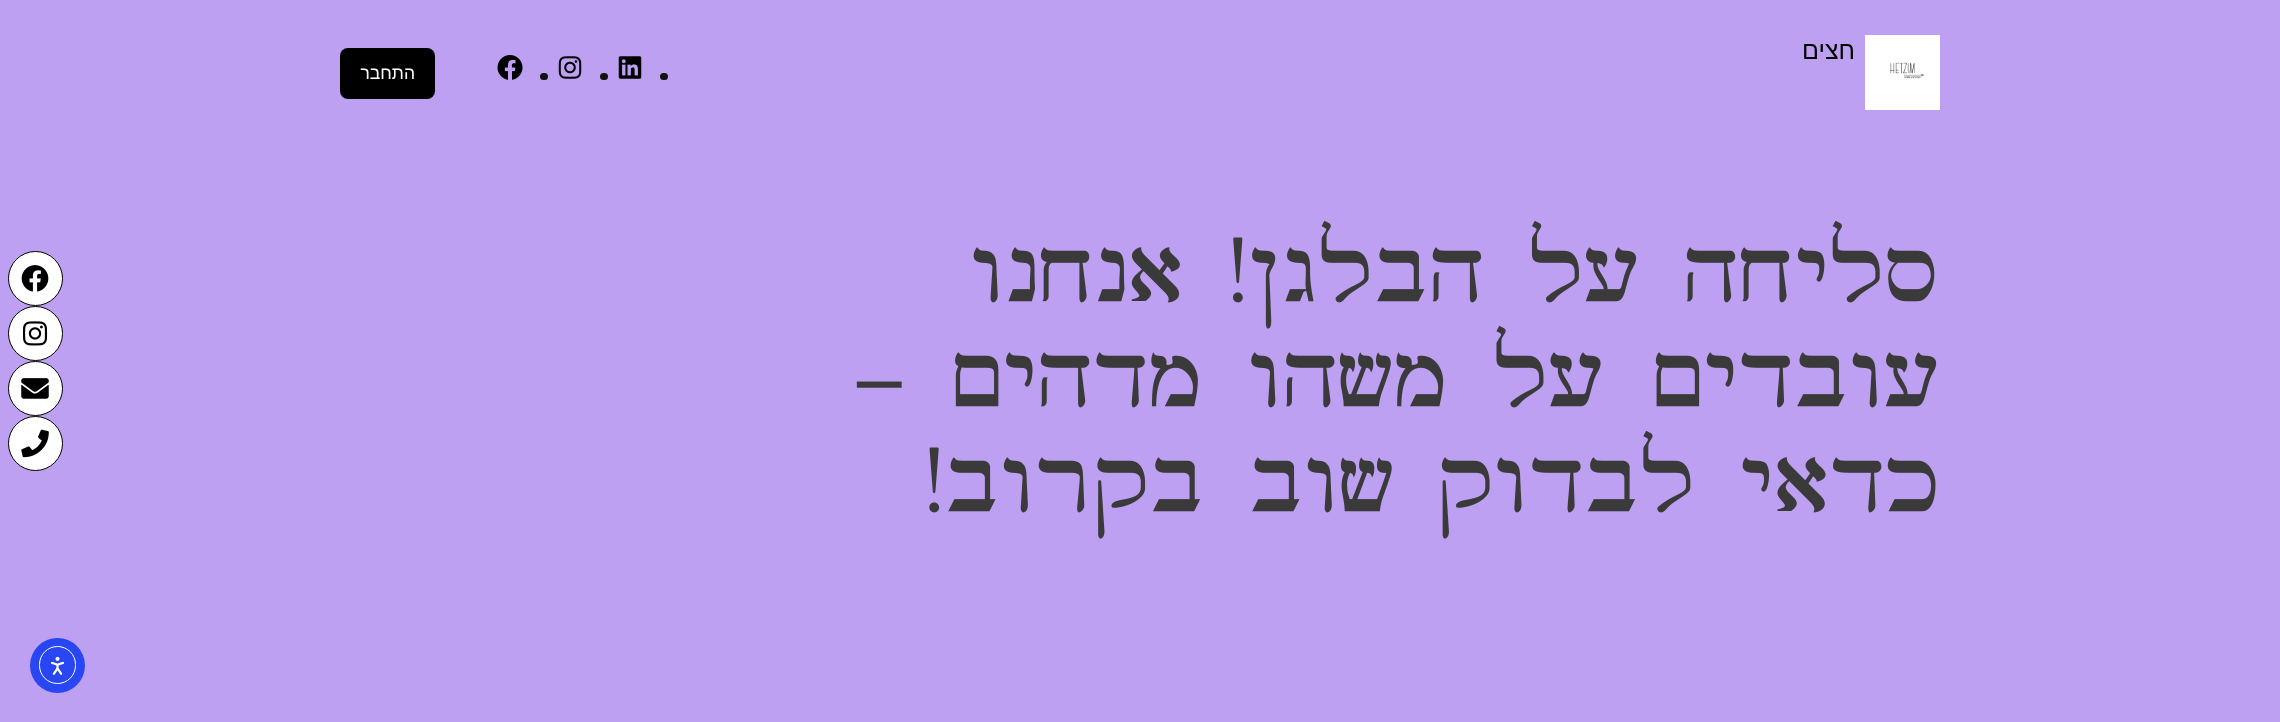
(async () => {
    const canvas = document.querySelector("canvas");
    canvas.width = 2280;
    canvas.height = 722;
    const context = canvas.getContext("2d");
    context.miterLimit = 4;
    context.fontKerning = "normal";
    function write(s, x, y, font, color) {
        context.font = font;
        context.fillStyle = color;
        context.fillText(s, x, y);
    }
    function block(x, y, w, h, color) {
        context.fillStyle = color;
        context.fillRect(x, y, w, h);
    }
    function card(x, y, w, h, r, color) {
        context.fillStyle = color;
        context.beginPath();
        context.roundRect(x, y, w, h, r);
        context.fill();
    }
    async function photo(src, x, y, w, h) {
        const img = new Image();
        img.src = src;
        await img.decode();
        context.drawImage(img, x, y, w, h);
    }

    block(0, 0, 2280, 722, "rgb(190, 160, 242)");
    await photo("media/1.png", 1865, 35, 75, 75);
    context.direction = "rtl";
    write("חצים", 1855, 59, "25px Liberation Sans", "rgb(0, 0, 0)");
    card(660, 73, 8, 7, 3.5, "rgb(17, 17, 17)");
    await photo("media/2.png", 618, 56, 24, 23);
    card(600, 73, 8, 7, 3.5, "rgb(17, 17, 17)");
    await photo("media/3.png", 558, 56, 24, 23);
    card(540, 73, 8, 7, 3.5, "rgb(17, 17, 17)");
    await photo("media/4.png", 497, 55, 26, 25);
    card(340, 48, 95, 51, 8, "rgb(0, 0, 0)");
    write("התחבר", 415, 79, "17.5px Liberation Sans", "rgb(255, 255, 255)");
    await photo("media/5.png", 973, 220, 962, 109);
    await photo("media/6.png", 856, 325, 1081, 83);
    await photo("media/7.png", 929, 430, 1007, 109);
    context.beginPath();
    context.arc(35.5, 278.5, 27, 0, Math.PI * 2);
    context.fill();
    context.strokeStyle = "rgb(0, 0, 0)";
    context.stroke();
    await photo("media/8.png", 21, 265, 28, 27);
    context.beginPath();
    context.arc(35.5, 333.5, 27, 0, Math.PI * 2);
    context.fill();
    context.stroke();
    await photo("media/9.png", 22, 321, 26, 25);
    context.beginPath();
    context.arc(35.5, 388.5, 27, 0, Math.PI * 2);
    context.fill();
    context.stroke();
    await photo("media/10.png", 21, 378, 28, 21);
    context.beginPath();
    context.arc(35.5, 443.5, 27, 0, Math.PI * 2);
    context.fill();
    context.stroke();
    await photo("media/11.png", 21, 429, 28, 29);
    context.fillStyle = "rgb(40, 71, 243)";
    context.beginPath();
    context.arc(57.5, 665.5, 27.5, 0, Math.PI * 2);
    context.fill();
    context.beginPath();
    context.roundRect(39.5, 646.5, 36, 37, 18);
    context.strokeStyle = "rgb(255, 255, 255)";
    context.stroke();
    await photo("media/12.png", 51, 656, 13, 19);
})();
